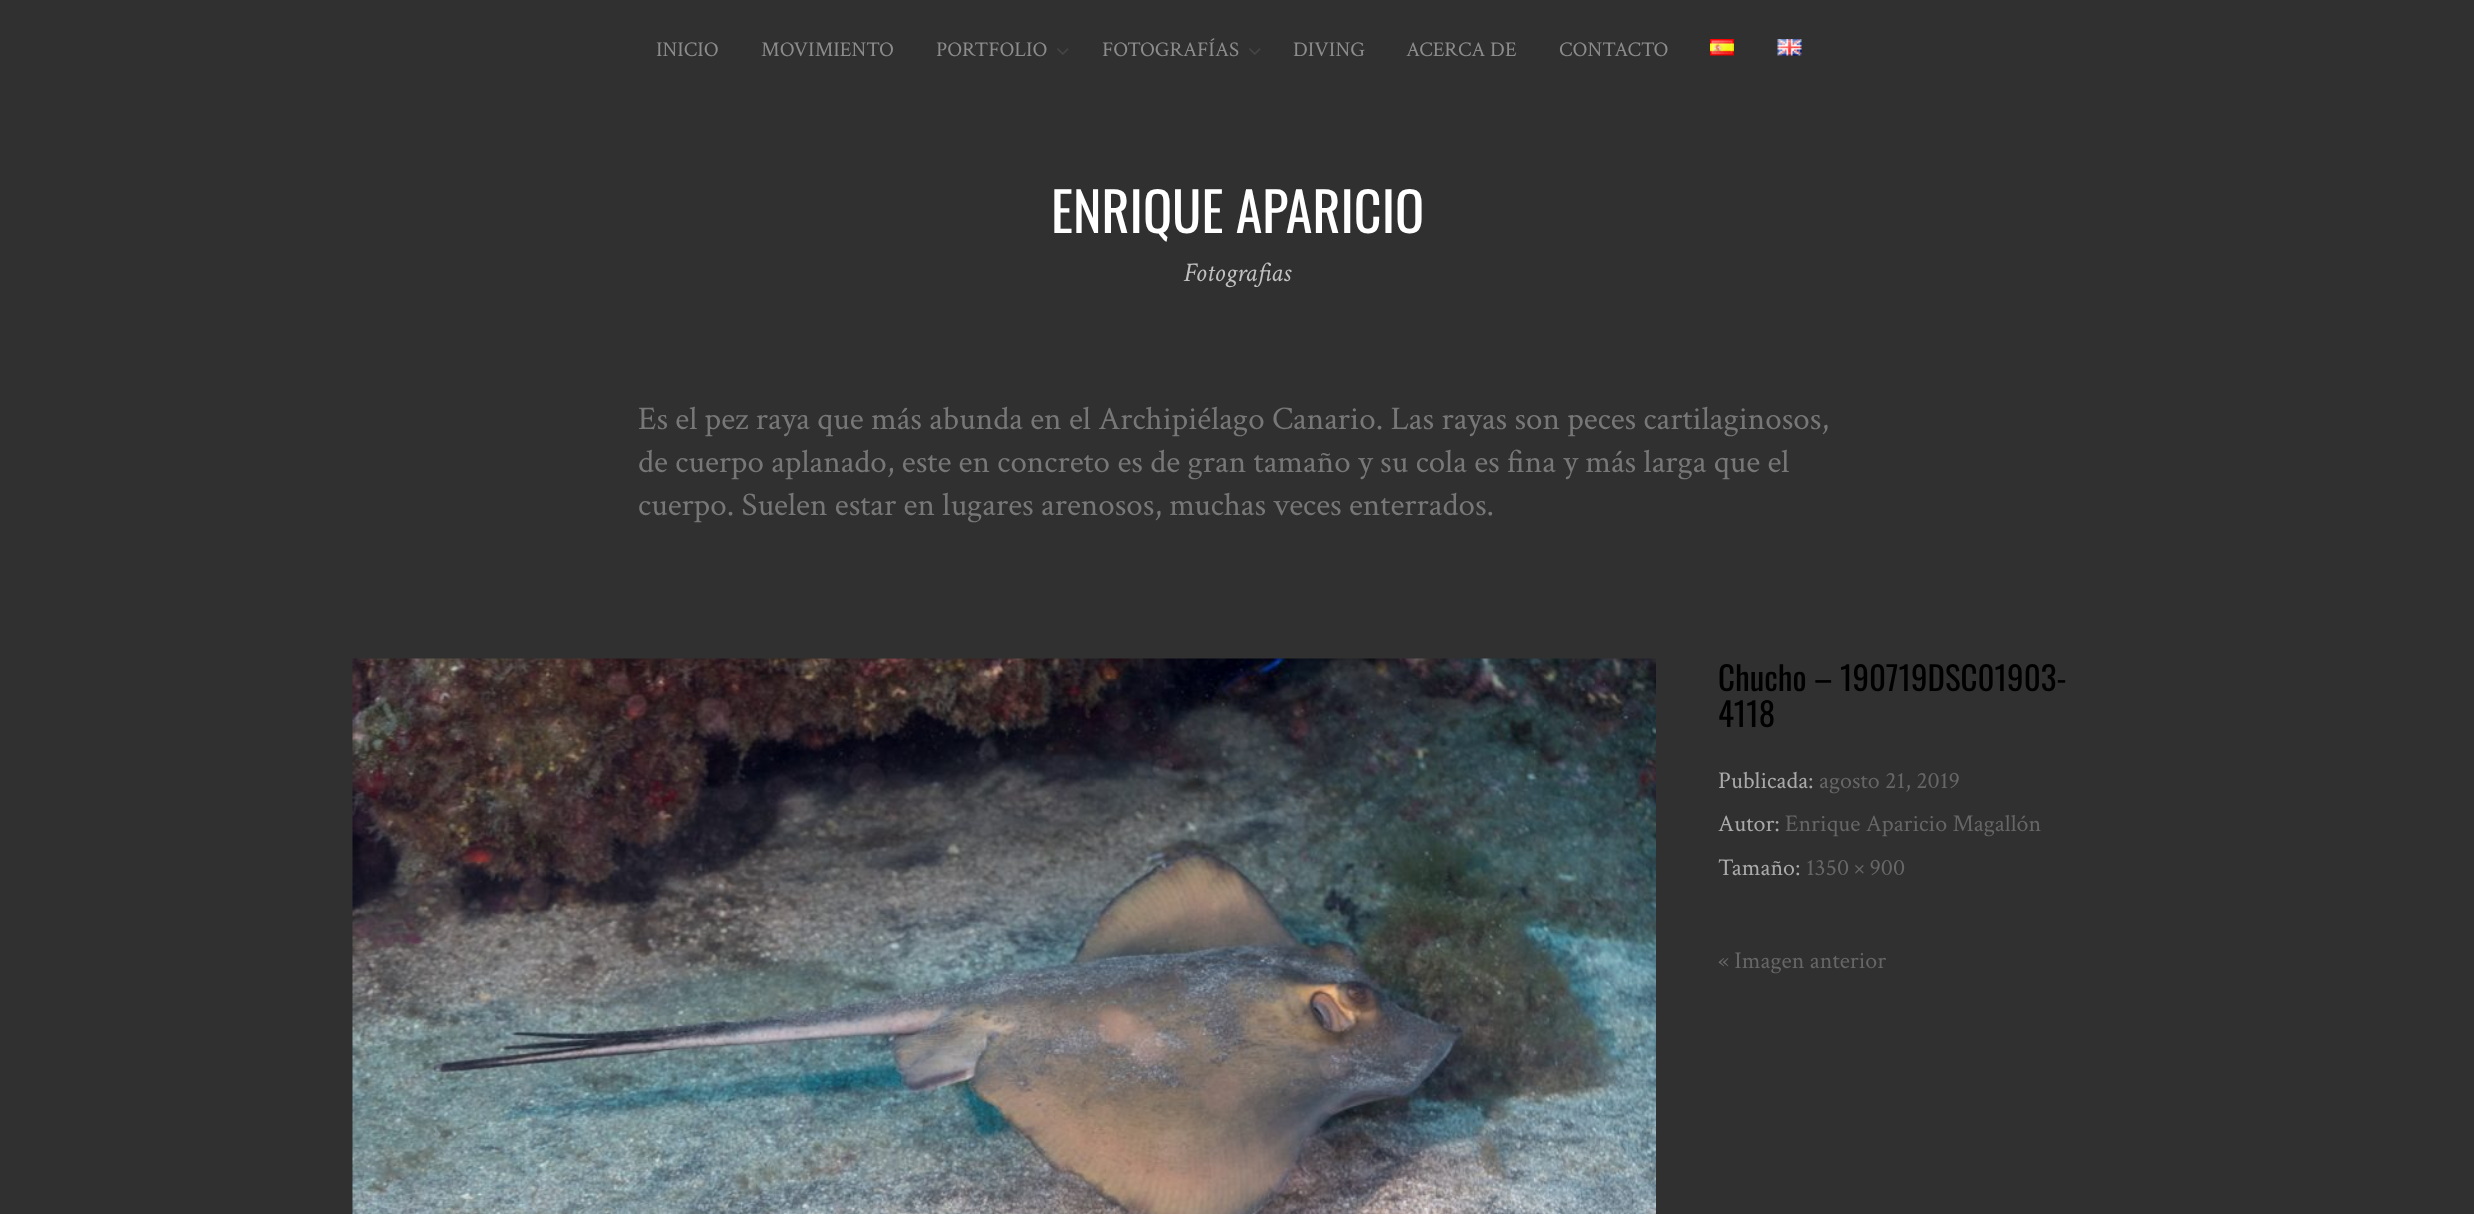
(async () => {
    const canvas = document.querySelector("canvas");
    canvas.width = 2474;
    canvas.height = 1214;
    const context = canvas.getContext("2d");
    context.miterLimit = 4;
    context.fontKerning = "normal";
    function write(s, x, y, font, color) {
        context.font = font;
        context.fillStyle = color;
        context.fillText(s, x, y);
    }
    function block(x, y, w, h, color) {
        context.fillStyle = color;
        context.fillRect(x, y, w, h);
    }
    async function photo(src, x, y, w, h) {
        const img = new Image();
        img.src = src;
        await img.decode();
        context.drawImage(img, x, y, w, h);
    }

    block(0, 0, 2474, 1214, "rgb(48, 48, 48)");
    write("INICIO", 656, 56, "21px Crimson Text", "rgb(140, 140, 140)");
    write("MOVIMIENTO", 761, 56, "21px Crimson Text", "rgb(140, 140, 140)");
    write("PORTFOLIO", 936, 56, "21px Crimson Text", "rgb(140, 140, 140)");
    await photo("media/1.png", 1057, 48, 12, 7);
    write("FOTOGRAFÍAS", 1102, 56, "21px Crimson Text", "rgb(140, 140, 140)");
    await photo("media/1.png", 1249, 48, 12, 7);
    write("DIVING", 1293, 56, "21px Crimson Text", "rgb(140, 140, 140)");
    write("ACERCA DE", 1406, 56, "21px Crimson Text", "rgb(140, 140, 140)");
    write("CONTACTO", 1559, 56, "21px Crimson Text", "rgb(140, 140, 140)");
    await photo("media/2.png", 1710, 39, 24, 17);
    await photo("media/3.png", 1777, 39, 25, 17);
    write("ENRIQUE APARICIO", 1051, 233, "54px Oswald", "rgb(255, 255, 255)");
    write("Fotografias", 1184, 281, "italic 27px Crimson Text", "rgb(193, 193, 193)");
    write("Es el pez raya que más abunda en el Archipiélago Canario. Las rayas son peces cartilaginosos,", 638, 429, "33px Crimson Text", "rgb(119, 119, 119)");
    write("de cuerpo aplanado, este en concreto es de gran tamaño y su cola es fina y más larga que el", 638, 472, "33px Crimson Text", "rgb(119, 119, 119)");
    write("cuerpo. Suelen estar en lugares arenosos, muchas veces enterrados.", 638, 515, "33px Crimson Text", "rgb(119, 119, 119)");
    await photo("media/4.png", 352, 658, 1304, 556);
    write("Chucho – 190719DSC01903-", 1718, 691, "33px Oswald", "rgb(0, 0, 0)");
    write("4118", 1718, 727, "33px Oswald", "rgb(0, 0, 0)");
    write("Publicada:", 1718, 788, "24px Crimson Text", "rgb(170, 170, 170)");
    write("agosto 21, 2019", 1819, 788, "24px Crimson Text", "rgb(102, 102, 102)");
    write("Autor:", 1718, 831, "24px Crimson Text", "rgb(170, 170, 170)");
    write("Enrique Aparicio Magallón", 1785, 831, "24px Crimson Text", "rgb(102, 102, 102)");
    write("Tamaño:", 1718, 875, "24px Crimson Text", "rgb(170, 170, 170)");
    write("1350 × 900", 1806, 875, "24px Crimson Text", "rgb(102, 102, 102)");
    write("« Imagen anterior", 1718, 968, "24px Crimson Text", "rgb(102, 102, 102)");
})();
